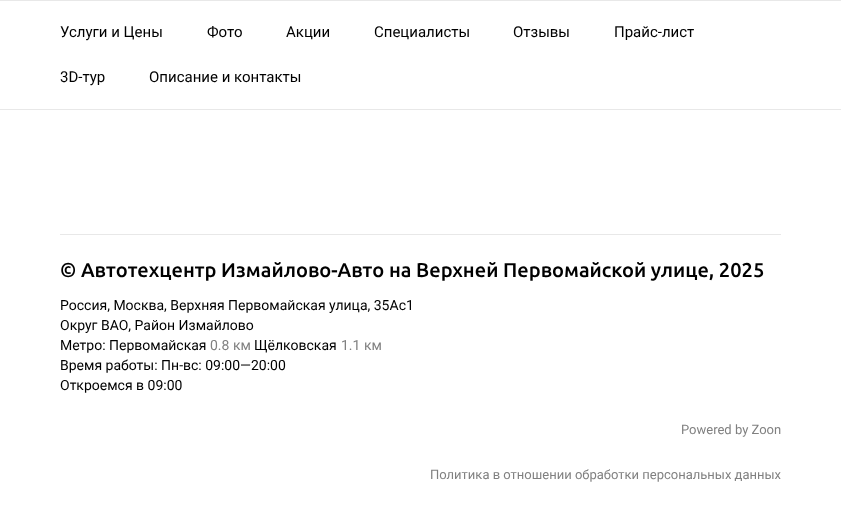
(async () => {
    const canvas = document.querySelector("canvas");
    canvas.width = 841;
    canvas.height = 510;
    const context = canvas.getContext("2d");
    context.miterLimit = 4;
    context.fontKerning = "normal";
    function write(s, x, y, font, color) {
        context.font = font;
        context.fillStyle = color;
        context.fillText(s, x, y);
    }
    function block(x, y, w, h, color) {
        context.fillStyle = color;
        context.fillRect(x, y, w, h);
    }

    block(0, 0, 841, 510, "rgb(255, 255, 255)");
    block(0, 0, 841, 1, "rgb(232, 232, 232)");
    block(0, 109, 841, 1, "rgb(232, 232, 232)");
    write("Услуги и Цены", 60, 37, "15px Roboto", "rgb(0, 0, 0)");
    write("Фото", 207, 37, "15px Roboto", "rgb(0, 0, 0)");
    write("Акции", 286, 37, "15px Roboto", "rgb(0, 0, 0)");
    write("Специалисты", 374, 37, "15px Roboto", "rgb(0, 0, 0)");
    write("Отзывы", 513, 37, "15px Roboto", "rgb(0, 0, 0)");
    write("Прайс-лист", 614, 37, "15px Roboto", "rgb(0, 0, 0)");
    write("3D-тур", 60, 82, "15px Roboto", "rgb(0, 0, 0)");
    write("Описание и контакты", 149, 82, "15px Roboto", "rgb(0, 0, 0)");
    block(60, 234, 721, 1, "rgb(232, 232, 232)");
    write("© Автотехцентр Измайлово-Авто на Верхней Первомайской улице, 2025", 60, 277, "500 20px Ubuntu", "rgb(0, 0, 0)");
    write("Россия, Москва, Верхняя Первомайская улица, 35Ас1", 60, 310, "14px Roboto", "rgb(0, 0, 0)");
    write("Округ ВАО, Район Измайлово", 60, 330, "14px Roboto", "rgb(0, 0, 0)");
    write("Метро: Первомайская", 60, 350, "14px Roboto", "rgb(0, 0, 0)");
    write("0.8 км", 210, 350, "14px Roboto", "rgb(128, 128, 128)");
    write("Щёлковская", 254, 350, "14px Roboto", "rgb(0, 0, 0)");
    write("1.1 км", 341, 350, "14px Roboto", "rgb(128, 128, 128)");
    write("Время работы: Пн-вс: 09:00—20:00", 60, 370, "14px Roboto", "rgb(0, 0, 0)");
    write("Откроемся в 09:00", 60, 390, "14px Roboto", "rgb(0, 0, 0)");
    write("Powered by Zoon", 681, 434, "13px Roboto", "rgb(128, 128, 128)");
    write("Политика в отношении обработки персональных данных", 430, 479, "13px Roboto", "rgb(128, 128, 128)");
})();
